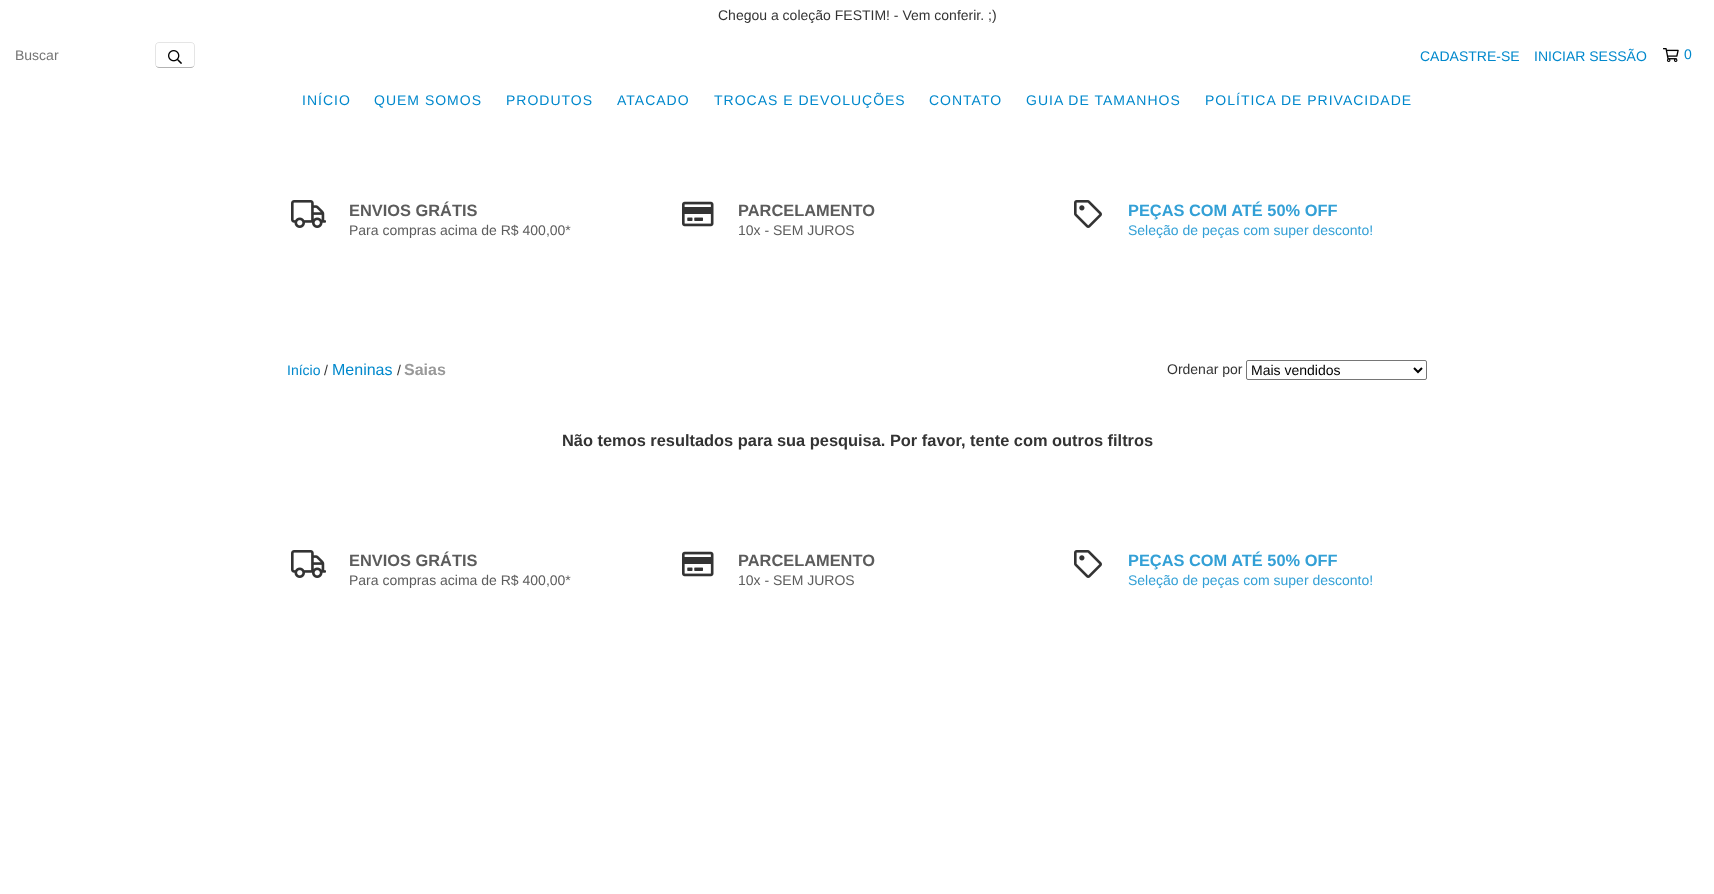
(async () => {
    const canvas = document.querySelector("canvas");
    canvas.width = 1714;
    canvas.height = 894;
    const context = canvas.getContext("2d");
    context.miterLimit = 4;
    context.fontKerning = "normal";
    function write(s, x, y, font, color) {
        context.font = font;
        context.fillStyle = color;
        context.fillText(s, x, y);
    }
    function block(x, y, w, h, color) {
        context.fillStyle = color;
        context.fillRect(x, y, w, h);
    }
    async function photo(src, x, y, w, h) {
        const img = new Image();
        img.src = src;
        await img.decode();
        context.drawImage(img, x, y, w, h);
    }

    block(0, 0, 1714, 894, "rgb(255, 255, 255)");
    write("Chegou a coleção FESTIM! - Vem conferir. ;)", 718, 20, "14px Liberation Sans", "rgb(51, 51, 51)");
    write("Buscar", 15, 60, "14px Liberation Sans", "rgb(117, 117, 117)");
    context.beginPath();
    context.moveTo(193.5, 66.5);
    context.bezierCurveTo(193, 67, 192, 67.5, 191, 67.5);
    context.lineTo(159, 67.5);
    context.bezierCurveTo(158, 67.5, 157, 67, 156.5, 66.5);
    context.strokeStyle = "rgb(179, 179, 179)";
    context.stroke();
    context.beginPath();
    context.moveTo(156.5, 66.5);
    context.bezierCurveTo(156, 66, 155.5, 65, 155.5, 64);
    context.lineTo(155.5, 46);
    context.bezierCurveTo(155.5, 45, 156, 44, 156.5, 43.5);
    context.bezierCurveTo(157, 43, 158, 42.5, 159, 42.5);
    context.lineTo(191, 42.5);
    context.bezierCurveTo(192, 42.5, 193, 43, 193.5, 43.5);
    context.bezierCurveTo(194, 44, 194.5, 45, 194.5, 46);
    context.lineTo(194.5, 64);
    context.bezierCurveTo(194.5, 65, 194, 66, 193.5, 66.5);
    context.strokeStyle = "rgba(0, 0, 0, 0.1)";
    context.stroke();
    await photo("media/1.png", 168, 50, 14, 14);
    write("CADASTRE-SE", 1420, 61, "14px Liberation Sans", "rgb(0, 136, 204)");
    write("INICIAR SESSÃO", 1534, 61, "14px Liberation Sans", "rgb(0, 136, 204)");
    await photo("media/2.png", 1663, 48, 16, 14);
    context.letterSpacing = "1px";
    write("0", 1684, 59, "14px Liberation Sans", "rgb(0, 136, 204)");
    write("INÍCIO", 302, 105, "14px Liberation Sans", "rgb(0, 136, 204)");
    write("QUEM SOMOS", 374, 105, "14px Liberation Sans", "rgb(0, 136, 204)");
    write("PRODUTOS", 506, 105, "14px Liberation Sans", "rgb(0, 136, 204)");
    write("ATACADO", 617, 105, "14px Liberation Sans", "rgb(0, 136, 204)");
    write("TROCAS E DEVOLUÇÕES", 714, 105, "14px Liberation Sans", "rgb(0, 136, 204)");
    write("CONTATO", 929, 105, "14px Liberation Sans", "rgb(0, 136, 204)");
    write("GUIA DE TAMANHOS", 1026, 105, "14px Liberation Sans", "rgb(0, 136, 204)");
    write("POLÍTICA DE PRIVACIDADE", 1205, 105, "14px Liberation Sans", "rgb(0, 136, 204)");
    await photo("media/3.png", 291, 200, 35, 28);
    context.letterSpacing = "0px";
    write("ENVIOS GRÁTIS", 349, 216, "bold 16.4px Liberation Sans", "rgb(92, 92, 92)");
    write("Para compras acima de R$ 400,00*", 349, 235, "14px Liberation Sans", "rgb(92, 92, 92)");
    await photo("media/4.png", 682, 201, 32, 26);
    write("PARCELAMENTO", 738, 216, "bold 16.4px Liberation Sans", "rgb(92, 92, 92)");
    write("10x - SEM JUROS", 738, 235, "14px Liberation Sans", "rgb(92, 92, 92)");
    await photo("media/5.png", 1074, 200, 28, 28);
    write("PEÇAS COM ATÉ 50% OFF", 1128, 216, "bold 16.4px Liberation Sans", "rgb(51, 160, 214)");
    write("Seleção de peças com super desconto!", 1128, 235, "14px Liberation Sans", "rgb(51, 160, 214)");
    write("Início", 287, 375, "14px Liberation Sans", "rgb(0, 136, 204)");
    write("/", 324, 375, "14px Liberation Sans", "rgb(51, 51, 51)");
    write("Meninas", 332, 375, "16px Liberation Sans", "rgb(0, 136, 204)");
    write("/", 397, 375, "14px Liberation Sans", "rgb(51, 51, 51)");
    write("Saias", 404, 375, "bold 16px Liberation Sans", "rgb(153, 153, 153)");
    write("Ordenar por", 1167, 374, "14px Liberation Sans", "rgb(51, 51, 51)");
    context.beginPath();
    context.roundRect(1246.5, 360.5, 180, 19, 1.5);
    context.strokeStyle = "rgb(118, 118, 118)";
    context.stroke();
    context.beginPath();
    context.moveTo(1414, 368);
    context.lineTo(1418, 372);
    context.lineTo(1422, 368);
    context.strokeStyle = "rgb(0, 0, 0)";
    context.lineWidth = 2;
    context.stroke();
    write("Mais vendidos", 1251, 375, "14px Liberation Sans", "rgb(0, 0, 0)");
    write("Não temos resultados para sua pesquisa. Por favor, tente com outros filtros", 562, 446, "bold 16.4px Liberation Sans", "rgb(51, 51, 51)");
    await photo("media/3.png", 291, 550, 35, 28);
    write("ENVIOS GRÁTIS", 349, 566, "bold 16.4px Liberation Sans", "rgb(92, 92, 92)");
    write("Para compras acima de R$ 400,00*", 349, 585, "14px Liberation Sans", "rgb(92, 92, 92)");
    await photo("media/4.png", 682, 551, 32, 26);
    write("PARCELAMENTO", 738, 566, "bold 16.4px Liberation Sans", "rgb(92, 92, 92)");
    write("10x - SEM JUROS", 738, 585, "14px Liberation Sans", "rgb(92, 92, 92)");
    await photo("media/5.png", 1074, 550, 28, 28);
    write("PEÇAS COM ATÉ 50% OFF", 1128, 566, "bold 16.4px Liberation Sans", "rgb(51, 160, 214)");
    write("Seleção de peças com super desconto!", 1128, 585, "14px Liberation Sans", "rgb(51, 160, 214)");
})();
